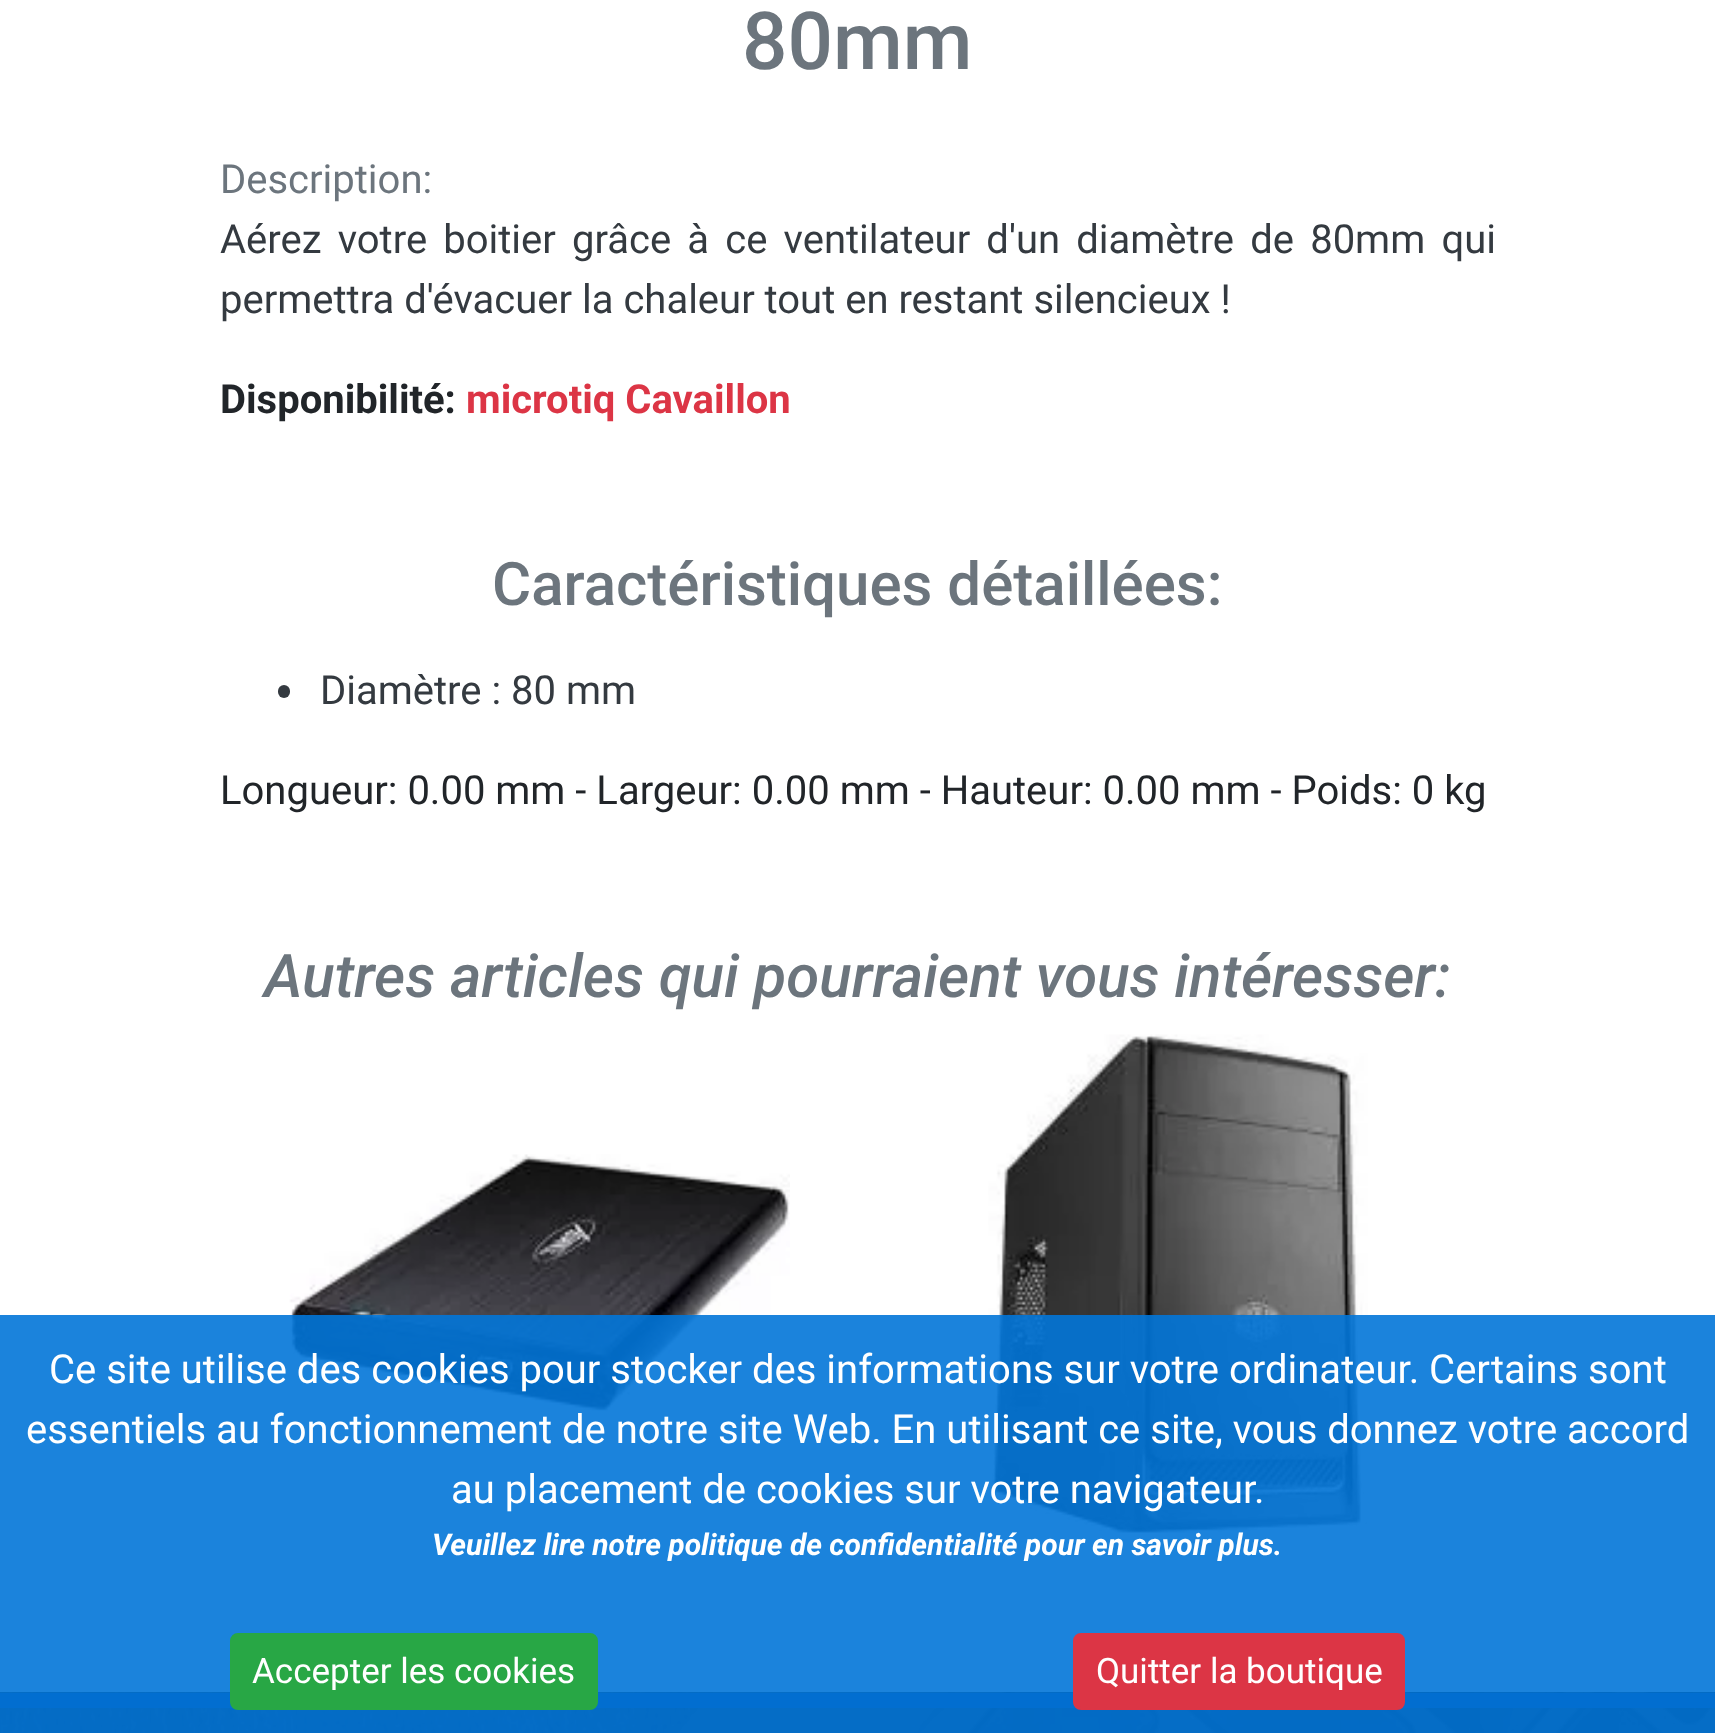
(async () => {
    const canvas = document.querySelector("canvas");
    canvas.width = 1715;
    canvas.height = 1733;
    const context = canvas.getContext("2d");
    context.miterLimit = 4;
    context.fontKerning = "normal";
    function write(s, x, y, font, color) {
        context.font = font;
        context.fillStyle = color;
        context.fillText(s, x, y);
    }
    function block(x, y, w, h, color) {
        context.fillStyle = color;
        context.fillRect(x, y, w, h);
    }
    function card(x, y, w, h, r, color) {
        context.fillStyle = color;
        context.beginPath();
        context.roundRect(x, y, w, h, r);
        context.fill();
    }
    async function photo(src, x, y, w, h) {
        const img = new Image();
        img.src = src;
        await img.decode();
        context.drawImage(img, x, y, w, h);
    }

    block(0, 0, 1715, 1733, "rgb(255, 255, 255)");
    write("80mm", 742, 69, "500 80px Roboto", "rgb(108, 117, 125)");
    write("Description:", 220, 193, "40px Roboto", "rgb(108, 117, 125)");
    context.wordSpacing = "6.25px";
    write("Aérez votre boitier grâce à ce ventilateur d'un diamètre de 80mm qui", 220, 253, "40px Roboto", "rgb(52, 58, 64)");
    context.wordSpacing = "0px";
    write("permettra d'évacuer la chaleur tout en restant silencieux !", 220, 313, "40px Roboto", "rgb(52, 58, 64)");
    write("Disponibilité:", 220, 413, "bold 40px Roboto", "rgb(33, 37, 41)");
    write("microtiq Cavaillon", 466, 413, "bold 40px Roboto", "rgb(220, 53, 69)");
    write("Caractéristiques détaillées:", 492, 605, "500 60px Roboto", "rgb(108, 117, 125)");
    card(278, 685, 12, 13, 6, "rgb(52, 58, 64)");
    write("Diamètre : 80 mm", 320, 704, "40px Roboto", "rgb(52, 58, 64)");
    write("Longueur: 0.00 mm - Largeur: 0.00 mm - Hauteur: 0.00 mm - Poids: 0 kg", 220, 804, "40px Roboto", "rgb(33, 37, 41)");
    write("Autres articles qui pourraient vous intéresser:", 264, 997, "italic 500 60px Roboto", "rgb(108, 117, 125)");
    await photo("media/1.png", 289, 1154, 501, 261);
    await photo("media/2.png", 988, 1034, 380, 501);
    await photo("media/3.png", 0, 1692, 1715, 41);
    block(0, 1693, 1715, 15, "rgb(1, 42, 129)");
    block(0, 1315, 1715, 418, "rgba(2, 117, 216, 0.9)");
    write("Ce site utilise des cookies pour stocker des informations sur votre ordinateur. Certains sont", 49, 1383, "40px Roboto", "rgb(255, 255, 255)");
    write("essentiels au fonctionnement de notre site Web. En utilisant ce site, vous donnez votre accord", 26, 1443, "40px Roboto", "rgb(255, 255, 255)");
    write("au placement de cookies sur votre navigateur.", 451, 1503, "40px Roboto", "rgb(255, 255, 255)");
    write("Veuillez lire notre politique de confidentialité pour en savoir plus.", 432, 1555, "italic bold 30px Roboto", "rgb(255, 255, 255)");
    context.fillStyle = "rgb(40, 167, 69)";
    context.beginPath();
    context.roundRect(231.5, 1634.5, 365, 74, 6.5);
    context.fill();
    context.strokeStyle = "rgb(40, 167, 69)";
    context.lineWidth = 3;
    context.stroke();
    write("Accepter les cookies", 252, 1683, "35px Roboto", "rgb(255, 255, 255)");
    context.fillStyle = "rgb(220, 53, 69)";
    context.beginPath();
    context.roundRect(1074.5, 1634.5, 329, 74, 6.5);
    context.fill();
    context.strokeStyle = "rgb(220, 53, 69)";
    context.stroke();
    write("Quitter la boutique", 1096, 1683, "35px Roboto", "rgb(255, 255, 255)");
})();
